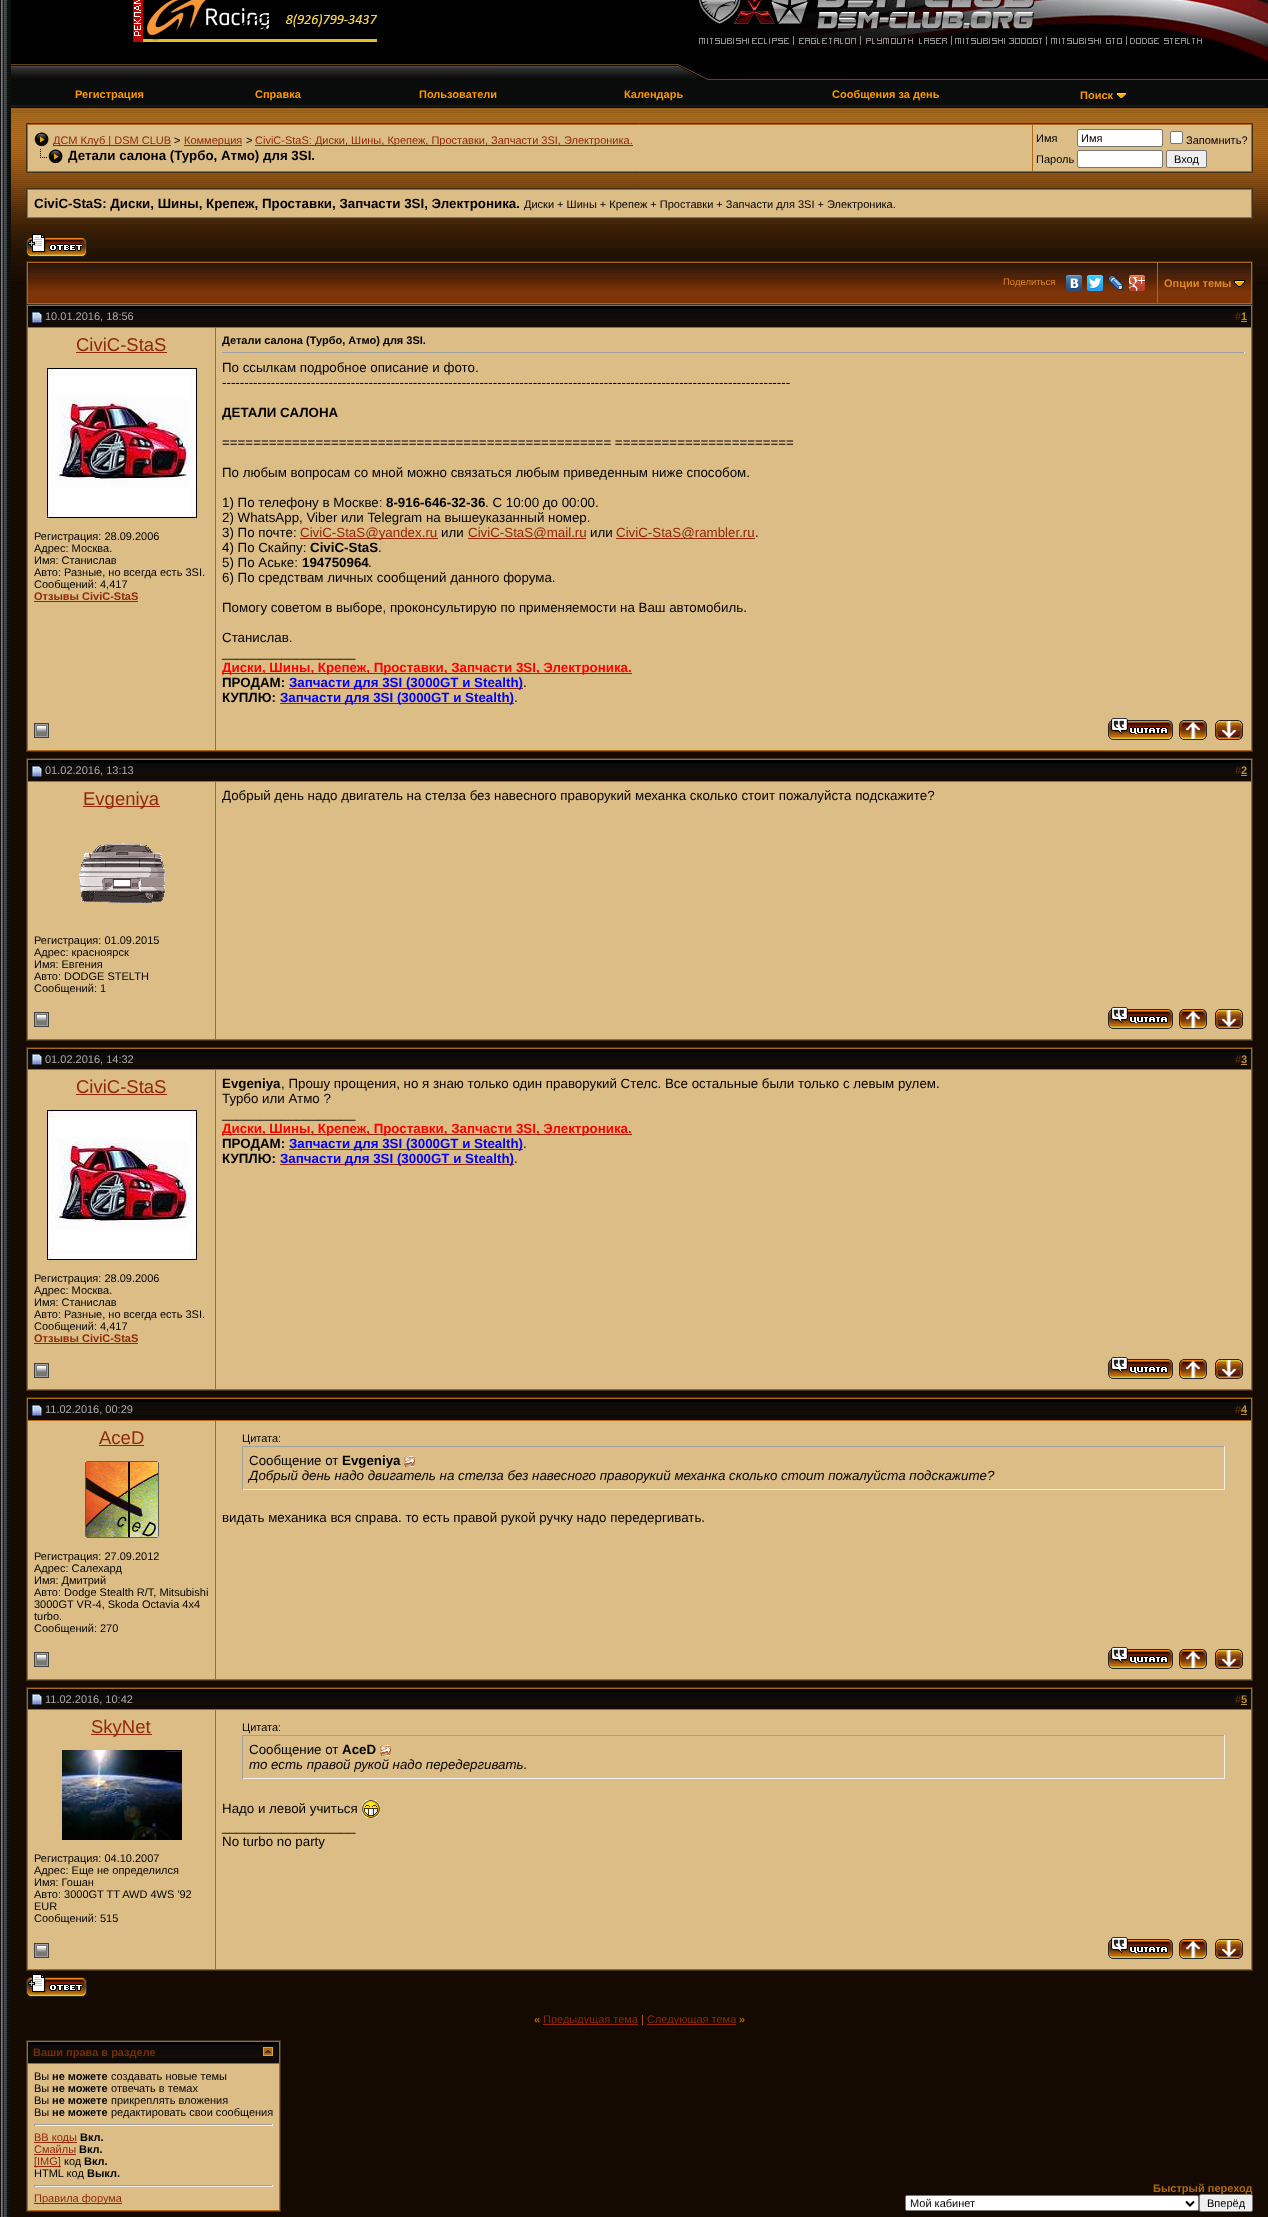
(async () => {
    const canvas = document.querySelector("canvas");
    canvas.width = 1268;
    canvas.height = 2217;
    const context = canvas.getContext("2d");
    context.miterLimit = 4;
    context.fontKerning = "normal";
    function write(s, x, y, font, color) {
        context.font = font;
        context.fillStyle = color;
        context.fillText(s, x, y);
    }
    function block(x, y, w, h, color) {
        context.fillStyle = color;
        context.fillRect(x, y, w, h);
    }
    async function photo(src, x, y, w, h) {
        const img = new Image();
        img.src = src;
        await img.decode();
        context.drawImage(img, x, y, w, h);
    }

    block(0, 0, 1268, 2217, "rgb(255, 255, 255)");
    await photo("media/1.png", 0, 0, 11, 2217);
    await photo("media/2.png", 11, 0, 487, 80);
    await photo("media/3.png", 133, 0, 244, 42);
    await photo("media/4.png", 498, 0, 352, 80);
    await photo("media/5.png", 850, 0, 418, 80);
    block(11, 80, 1257, 28, "rgb(10, 11, 11)");
    block(11, 105, 1257, 2, "rgb(26, 26, 26)");
    write("Регистрация", 75, 98, "bold 11px Liberation Sans", "rgb(255, 153, 0)");
    write("Справка", 255, 98, "bold 11px Liberation Sans", "rgb(255, 153, 0)");
    write("Пользователи", 419, 98, "bold 11px Liberation Sans", "rgb(255, 153, 0)");
    write("Календарь", 624, 98, "bold 11px Liberation Sans", "rgb(255, 153, 0)");
    write("Сообщения за день", 832, 98, "bold 11px Liberation Sans", "rgb(255, 153, 0)");
    write("Поиск", 1080, 99, "bold 11px Liberation Sans", "rgb(255, 153, 0)");
    await photo("media/6.png", 1116, 92, 11, 7);
    block(1265, 105, 3, 2, "rgb(9, 9, 9)");
    block(11, 281, 1257, 1936, "rgb(20, 10, 1)");
    await photo("media/7.png", 11, 108, 1257, 173);
    context.fillStyle = "rgb(174, 104, 20)";
    context.beginPath();
    context.rect(26.5, 123.5, 1226, 49);
    context.fill();
    context.strokeStyle = "rgb(67, 48, 27)";
    context.stroke();
    block(28, 125, 1004, 46, "rgb(220, 189, 134)");
    await photo("media/8.png", 34, 132, 15, 15);
    block(53, 145, 118, 1, "rgb(145, 40, 9)");
    write("ДСМ Клуб | DSM CLUB", 53, 144, "11px Liberation Sans", "rgb(145, 40, 9)");
    write(">", 174, 144, "11px Liberation Sans", "rgb(0, 0, 0)");
    block(184, 145, 58, 1, "rgb(145, 40, 9)");
    write("Коммерция", 184, 144, "11px Liberation Sans", "rgb(145, 40, 9)");
    write(">", 246, 144, "11px Liberation Sans", "rgb(0, 0, 0)");
    block(255, 145, 378, 1, "rgb(145, 40, 9)");
    write("СiviC-StaS: Диски, Шины, Крепеж, Проставки, Запчасти 3SI, Электроника.", 255, 144, "11px Liberation Sans", "rgb(145, 40, 9)");
    await photo("media/9.png", 40, 149, 23, 15);
    write("Детали салона (Турбо, Атмо) для 3SI.", 68, 160, "bold 13.33px Liberation Sans", "rgb(0, 0, 0)");
    block(1033, 125, 218, 46, "rgb(220, 189, 134)");
    write("Имя", 1036, 142, "11px Liberation Sans", "rgb(0, 0, 0)");
    context.fillStyle = "rgb(255, 255, 255)";
    context.beginPath();
    context.roundRect(1077.5, 129.5, 85, 17, 1.5);
    context.fill();
    context.strokeStyle = "rgb(118, 118, 118)";
    context.stroke();
    write("Имя", 1081, 142, "11px Liberation Sans", "rgb(0, 0, 0)");
    context.fillStyle = "rgb(255, 255, 255)";
    context.beginPath();
    context.roundRect(1170.5, 131.5, 12, 12, 1.5);
    context.fill();
    context.stroke();
    write("Запомнить?", 1186, 144, "11px Liberation Sans", "rgb(0, 0, 0)");
    write("Пароль", 1036, 163, "11px Liberation Sans", "rgb(0, 0, 0)");
    context.fillStyle = "rgb(255, 255, 255)";
    context.beginPath();
    context.roundRect(1077.5, 150.5, 85, 17, 1.5);
    context.fill();
    context.stroke();
    context.fillStyle = "rgb(239, 239, 239)";
    context.beginPath();
    context.roundRect(1166.5, 150.5, 40, 17, 1.5);
    context.fill();
    context.stroke();
    write("Вход", 1174, 163, "11px Liberation Sans", "rgb(0, 0, 0)");
    context.fillStyle = "rgb(174, 104, 20)";
    context.beginPath();
    context.rect(26.5, 188.5, 1226, 30);
    context.fill();
    context.strokeStyle = "rgb(67, 48, 27)";
    context.stroke();
    block(28, 190, 1223, 27, "rgb(220, 189, 134)");
    write("СiviC-StaS: Диски, Шины, Крепеж, Проставки, Запчасти 3SI, Электроника.", 34, 208, "bold 13.33px Liberation Sans", "rgb(0, 0, 0)");
    write("Диски + Шины + Крепеж + Проставки + Запчасти для 3SI + Электроника.", 524, 208, "11px Liberation Sans", "rgb(0, 0, 0)");
    await photo("media/10.png", 26, 234, 61, 23);
    block(27, 262, 1225, 42, "rgb(174, 104, 20)");
    block(26, 261, 1227, 1, "rgb(67, 48, 27)");
    block(1252, 261, 1, 43, "rgb(67, 48, 27)");
    block(26, 261, 1, 43, "rgb(67, 48, 27)");
    block(28, 291, 1129, 12, "rgb(127, 52, 8)");
    await photo("media/11.png", 28, 263, 1129, 28);
    write("Поделиться", 1003, 285, "9.5px Liberation Sans", "rgb(219, 137, 40)");
    await photo("media/12.png", 1066, 275, 16, 16);
    await photo("media/13.png", 1087, 275, 16, 16);
    await photo("media/14.png", 1108, 275, 16, 16);
    await photo("media/15.png", 1129, 275, 16, 16);
    block(1158, 291, 93, 12, "rgb(127, 52, 8)");
    await photo("media/16.png", 1158, 263, 93, 28);
    write("Опции темы", 1164, 287, "bold 11px Liberation Sans", "rgb(219, 137, 40)");
    await photo("media/17.png", 1234, 280, 11, 7);
    context.strokeRect(26.5, 304.5, 1226, 447);
    await photo("media/18.png", 28, 306, 188, 21);
    block(27, 305, 1225, 1, "rgb(174, 104, 20)");
    block(27, 327, 189, 1, "rgb(174, 104, 20)");
    block(27, 305, 1, 406, "rgb(174, 104, 20)");
    await photo("media/19.png", 32, 312, 10, 11);
    write("10.01.2016, 18:56", 45, 320, "11px Liberation Sans", "rgb(171, 171, 171)");
    await photo("media/20.png", 216, 306, 1035, 21);
    block(1251, 305, 1, 446, "rgb(174, 104, 20)");
    block(216, 327, 1036, 1, "rgb(174, 104, 20)");
    write("#", 1235, 320, "11px Liberation Sans", "rgb(116, 47, 7)");
    write("1", 1241, 320, "bold 11px Liberation Sans", "rgb(189, 143, 44)");
    block(1241, 321, 6, 1, "rgb(189, 143, 44)");
    block(28, 328, 187, 422, "rgb(220, 189, 134)");
    block(215, 328, 1, 423, "rgb(174, 104, 20)");
    write("CiviC-StaS", 76, 351, "18.5px Liberation Sans", "rgb(145, 40, 9)");
    block(76, 352, 91, 1, "rgb(145, 40, 9)");
    await photo("media/21.png", 47, 368, 150, 150);
    write("Регистрация: 28.09.2006", 34, 540, "11px Liberation Sans", "rgb(0, 0, 0)");
    write("Адрес: Москва.", 34, 552, "11px Liberation Sans", "rgb(0, 0, 0)");
    write("Имя: Станислав", 34, 564, "11px Liberation Sans", "rgb(0, 0, 0)");
    write("Авто: Разные, но всегда есть 3SI.", 34, 576, "11px Liberation Sans", "rgb(0, 0, 0)");
    write("Сообщений: 4,417", 34, 588, "11px Liberation Sans", "rgb(0, 0, 0)");
    write("Отзывы CiviC-StaS", 34, 600, "bold 11px Liberation Sans", "rgb(145, 40, 9)");
    block(34, 601, 104, 1, "rgb(145, 40, 9)");
    block(216, 328, 1035, 422, "rgb(220, 189, 134)");
    write("Детали салона (Турбо, Атмо) для 3SI.", 222, 344, "bold 11px Liberation Sans", "rgb(0, 0, 0)");
    block(222, 352, 1023, 1, "rgb(159, 159, 159)");
    block(1244, 352, 1, 1, "rgb(238, 238, 238)");
    write("По ссылкам подробное описание и фото.", 222, 372, "13.33px Liberation Sans", "rgb(0, 0, 0)");
    write("--------------------------------------------------------------------------------------------------------------------------------", 222, 387, "13.33px Liberation Sans", "rgb(0, 0, 0)");
    write("ДЕТАЛИ САЛОНА", 222, 417, "bold 13.33px Liberation Sans", "rgb(0, 0, 0)");
    write("================================================== =======================", 222, 447, "13.33px Liberation Sans", "rgb(0, 0, 0)");
    write("По любым вопросам со мной можно связаться любым приведенным ниже способом.", 222, 477, "13.33px Liberation Sans", "rgb(0, 0, 0)");
    write("1) По телефону в Москве:", 222, 507, "13.33px Liberation Sans", "rgb(0, 0, 0)");
    write("8-916-646-32-36", 386, 507, "bold 13.33px Liberation Sans", "rgb(0, 0, 0)");
    write(". С 10:00 до 00:00.", 485, 507, "13.33px Liberation Sans", "rgb(0, 0, 0)");
    write("2) WhatsApp, Viber или Telegram на вышеуказанный номер.", 222, 522, "13.33px Liberation Sans", "rgb(0, 0, 0)");
    write("3) По почте:", 222, 537, "13.33px Liberation Sans", "rgb(0, 0, 0)");
    block(300, 538, 138, 1, "rgb(145, 40, 9)");
    write("CiviC-StaS@yandex.ru", 300, 537, "13.33px Liberation Sans", "rgb(145, 40, 9)");
    write("или", 441, 537, "13.33px Liberation Sans", "rgb(0, 0, 0)");
    block(468, 538, 118, 1, "rgb(145, 40, 9)");
    write("CiviC-StaS@mail.ru", 468, 537, "13.33px Liberation Sans", "rgb(145, 40, 9)");
    write("или", 590, 537, "13.33px Liberation Sans", "rgb(0, 0, 0)");
    block(616, 538, 139, 1, "rgb(145, 40, 9)");
    write("CiviC-StaS@rambler.ru", 616, 537, "13.33px Liberation Sans", "rgb(145, 40, 9)");
    write(".", 755, 537, "13.33px Liberation Sans", "rgb(0, 0, 0)");
    write("4) По Скайпу:", 222, 552, "13.33px Liberation Sans", "rgb(0, 0, 0)");
    write("CiviC-StaS", 310, 552, "bold 13.33px Liberation Sans", "rgb(0, 0, 0)");
    write(".", 378, 552, "13.33px Liberation Sans", "rgb(0, 0, 0)");
    write("5) По Аське:", 222, 567, "13.33px Liberation Sans", "rgb(0, 0, 0)");
    write("194750964", 302, 567, "bold 13.33px Liberation Sans", "rgb(0, 0, 0)");
    write(".", 368, 567, "13.33px Liberation Sans", "rgb(0, 0, 0)");
    write("6) По средствам личных сообщений данного форума.", 222, 582, "13.33px Liberation Sans", "rgb(0, 0, 0)");
    write("Помогу советом в выборе, проконсультирую по применяемости на Ваш автомобиль.", 222, 612, "13.33px Liberation Sans", "rgb(0, 0, 0)");
    write("Станислав.", 222, 642, "13.33px Liberation Sans", "rgb(0, 0, 0)");
    write("__________________", 222, 657, "13.33px Liberation Sans", "rgb(0, 0, 0)");
    block(222, 673, 410, 1, "rgb(145, 40, 9)");
    write("Диски, Шины, Крепеж, Проставки, Запчасти 3SI, Электроника.", 222, 672, "bold 13.33px Liberation Sans", "rgb(255, 0, 0)");
    write("ПРОДАМ:", 222, 687, "bold 13.33px Liberation Sans", "rgb(0, 0, 0)");
    block(289, 688, 234, 1, "rgb(145, 40, 9)");
    write("Запчасти для 3SI (3000GT и Stealth)", 289, 687, "bold 13.33px Liberation Sans", "rgb(0, 0, 255)");
    write(".", 523, 687, "13.33px Liberation Sans", "rgb(0, 0, 0)");
    write("КУПЛЮ:", 222, 702, "bold 13.33px Liberation Sans", "rgb(0, 0, 0)");
    block(280, 703, 234, 1, "rgb(145, 40, 9)");
    write("Запчасти для 3SI (3000GT и Stealth)", 280, 702, "bold 13.33px Liberation Sans", "rgb(0, 0, 255)");
    write(".", 514, 702, "13.33px Liberation Sans", "rgb(0, 0, 0)");
    block(27, 750, 1225, 1, "rgb(174, 104, 20)");
    block(27, 711, 1, 40, "rgb(174, 104, 20)");
    await photo("media/22.png", 34, 723, 15, 15);
    await photo("media/23.png", 1108, 718, 65, 22);
    await photo("media/24.png", 1179, 720, 28, 20);
    await photo("media/25.png", 1215, 720, 28, 20);
    context.strokeRect(26.5, 758.5, 1226, 282);
    await photo("media/18.png", 28, 760, 188, 21);
    block(27, 759, 1225, 1, "rgb(174, 104, 20)");
    block(27, 781, 189, 1, "rgb(174, 104, 20)");
    block(27, 759, 1, 241, "rgb(174, 104, 20)");
    await photo("media/19.png", 32, 766, 10, 11);
    write("01.02.2016, 13:13", 45, 774, "11px Liberation Sans", "rgb(171, 171, 171)");
    await photo("media/20.png", 216, 760, 1035, 21);
    block(1251, 759, 1, 281, "rgb(174, 104, 20)");
    block(216, 781, 1036, 1, "rgb(174, 104, 20)");
    write("#", 1235, 774, "11px Liberation Sans", "rgb(116, 47, 7)");
    write("2", 1241, 774, "bold 11px Liberation Sans", "rgb(189, 143, 44)");
    block(1241, 775, 6, 1, "rgb(189, 143, 44)");
    block(28, 782, 187, 257, "rgb(220, 189, 134)");
    block(215, 782, 1, 258, "rgb(174, 104, 20)");
    block(83, 806, 77, 1, "rgb(145, 40, 9)");
    write("Evgeniya", 83, 805, "18.5px Liberation Sans", "rgb(145, 40, 9)");
    await photo("media/26.png", 79, 843, 86, 60);
    write("Регистрация: 01.09.2015", 34, 944, "11px Liberation Sans", "rgb(0, 0, 0)");
    write("Адрес: красноярск", 34, 956, "11px Liberation Sans", "rgb(0, 0, 0)");
    write("Имя: Евгения", 34, 968, "11px Liberation Sans", "rgb(0, 0, 0)");
    write("Авто: DODGE STELTH", 34, 980, "11px Liberation Sans", "rgb(0, 0, 0)");
    write("Сообщений: 1", 34, 992, "11px Liberation Sans", "rgb(0, 0, 0)");
    block(216, 782, 1035, 257, "rgb(220, 189, 134)");
    write("Добрый день надо двигатель на стелза без навесного праворукий механка сколько стоит пожалуйста подскажите?", 222, 800, "13.33px Liberation Sans", "rgb(0, 0, 0)");
    block(27, 1039, 1225, 1, "rgb(174, 104, 20)");
    block(27, 1000, 1, 40, "rgb(174, 104, 20)");
    await photo("media/22.png", 34, 1012, 15, 15);
    await photo("media/23.png", 1108, 1007, 65, 22);
    await photo("media/24.png", 1179, 1009, 28, 20);
    await photo("media/25.png", 1215, 1009, 28, 20);
    context.strokeRect(26.5, 1047.5, 1226, 343);
    await photo("media/27.png", 28, 1049, 188, 20);
    block(27, 1048, 1225, 1, "rgb(174, 104, 20)");
    block(27, 1069, 189, 1, "rgb(174, 104, 20)");
    block(27, 1048, 1, 302, "rgb(174, 104, 20)");
    await photo("media/28.png", 32, 1054, 10, 11);
    write("01.02.2016, 14:32", 45, 1063, "11px Liberation Sans", "rgb(171, 171, 171)");
    await photo("media/29.png", 216, 1049, 1035, 20);
    block(1251, 1048, 1, 342, "rgb(174, 104, 20)");
    block(216, 1069, 1036, 1, "rgb(174, 104, 20)");
    write("#", 1235, 1063, "11px Liberation Sans", "rgb(116, 47, 7)");
    write("3", 1241, 1063, "bold 11px Liberation Sans", "rgb(189, 143, 44)");
    block(1241, 1064, 6, 1, "rgb(189, 143, 44)");
    block(28, 1070, 187, 319, "rgb(220, 189, 134)");
    block(215, 1070, 1, 320, "rgb(174, 104, 20)");
    write("CiviC-StaS", 76, 1093, "18.5px Liberation Sans", "rgb(145, 40, 9)");
    block(76, 1094, 91, 1, "rgb(145, 40, 9)");
    await photo("media/21.png", 47, 1110, 150, 150);
    write("Регистрация: 28.09.2006", 34, 1282, "11px Liberation Sans", "rgb(0, 0, 0)");
    write("Адрес: Москва.", 34, 1294, "11px Liberation Sans", "rgb(0, 0, 0)");
    write("Имя: Станислав", 34, 1306, "11px Liberation Sans", "rgb(0, 0, 0)");
    write("Авто: Разные, но всегда есть 3SI.", 34, 1318, "11px Liberation Sans", "rgb(0, 0, 0)");
    write("Сообщений: 4,417", 34, 1330, "11px Liberation Sans", "rgb(0, 0, 0)");
    write("Отзывы CiviC-StaS", 34, 1342, "bold 11px Liberation Sans", "rgb(145, 40, 9)");
    block(34, 1343, 104, 1, "rgb(145, 40, 9)");
    block(216, 1070, 1035, 319, "rgb(220, 189, 134)");
    write("Evgeniya", 222, 1088, "bold 13.33px Liberation Sans", "rgb(0, 0, 0)");
    write(", Прошу прощения, но я знаю только один праворукий Стелс. Все остальные были только с левым рулем.", 281, 1088, "13.33px Liberation Sans", "rgb(0, 0, 0)");
    write("Турбо или Атмо ?", 222, 1103, "13.33px Liberation Sans", "rgb(0, 0, 0)");
    write("__________________", 222, 1118, "13.33px Liberation Sans", "rgb(0, 0, 0)");
    block(222, 1134, 410, 1, "rgb(145, 40, 9)");
    write("Диски, Шины, Крепеж, Проставки, Запчасти 3SI, Электроника.", 222, 1133, "bold 13.33px Liberation Sans", "rgb(255, 0, 0)");
    write("ПРОДАМ:", 222, 1148, "bold 13.33px Liberation Sans", "rgb(0, 0, 0)");
    block(289, 1149, 234, 1, "rgb(145, 40, 9)");
    write("Запчасти для 3SI (3000GT и Stealth)", 289, 1148, "bold 13.33px Liberation Sans", "rgb(0, 0, 255)");
    write(".", 523, 1148, "13.33px Liberation Sans", "rgb(0, 0, 0)");
    write("КУПЛЮ:", 222, 1163, "bold 13.33px Liberation Sans", "rgb(0, 0, 0)");
    block(280, 1164, 234, 1, "rgb(145, 40, 9)");
    write("Запчасти для 3SI (3000GT и Stealth)", 280, 1163, "bold 13.33px Liberation Sans", "rgb(0, 0, 255)");
    write(".", 514, 1163, "13.33px Liberation Sans", "rgb(0, 0, 0)");
    block(27, 1389, 1225, 1, "rgb(174, 104, 20)");
    block(27, 1350, 1, 40, "rgb(174, 104, 20)");
    await photo("media/22.png", 34, 1363, 15, 15);
    await photo("media/23.png", 1108, 1357, 65, 22);
    await photo("media/24.png", 1179, 1359, 28, 20);
    await photo("media/25.png", 1215, 1359, 28, 20);
    context.strokeRect(26.5, 1397.5, 1226, 283);
    await photo("media/18.png", 28, 1399, 188, 21);
    block(27, 1398, 1225, 1, "rgb(174, 104, 20)");
    block(27, 1420, 189, 1, "rgb(174, 104, 20)");
    block(27, 1398, 1, 242, "rgb(174, 104, 20)");
    await photo("media/19.png", 32, 1405, 10, 11);
    write("11.02.2016, 00:29", 45, 1413, "11px Liberation Sans", "rgb(171, 171, 171)");
    await photo("media/20.png", 216, 1399, 1035, 21);
    block(1251, 1398, 1, 282, "rgb(174, 104, 20)");
    block(216, 1420, 1036, 1, "rgb(174, 104, 20)");
    write("#", 1235, 1413, "11px Liberation Sans", "rgb(116, 47, 7)");
    write("4", 1241, 1413, "bold 11px Liberation Sans", "rgb(189, 143, 44)");
    block(1241, 1414, 6, 1, "rgb(189, 143, 44)");
    block(28, 1421, 187, 258, "rgb(220, 189, 134)");
    block(215, 1421, 1, 259, "rgb(174, 104, 20)");
    write("AceD", 99, 1444, "18.5px Liberation Sans", "rgb(145, 40, 9)");
    block(99, 1445, 45, 1, "rgb(145, 40, 9)");
    await photo("media/30.png", 85, 1461, 74, 77);
    write("Регистрация: 27.09.2012", 34, 1560, "11px Liberation Sans", "rgb(0, 0, 0)");
    write("Адрес: Салехард", 34, 1572, "11px Liberation Sans", "rgb(0, 0, 0)");
    write("Имя: Дмитрий", 34, 1584, "11px Liberation Sans", "rgb(0, 0, 0)");
    write("Авто: Dodge Stealth R/T, Mitsubishi", 34, 1596, "11px Liberation Sans", "rgb(0, 0, 0)");
    write("3000GT VR-4, Skoda Octavia 4x4", 34, 1608, "11px Liberation Sans", "rgb(0, 0, 0)");
    write("turbo.", 34, 1620, "11px Liberation Sans", "rgb(0, 0, 0)");
    write("Сообщений: 270", 34, 1632, "11px Liberation Sans", "rgb(0, 0, 0)");
    block(216, 1421, 1035, 258, "rgb(220, 189, 134)");
    write("Цитата:", 242, 1442, "11px Liberation Sans", "rgb(0, 0, 0)");
    block(242, 1446, 983, 1, "rgb(159, 159, 159)");
    block(1224, 1446, 1, 44, "rgb(238, 238, 238)");
    block(242, 1489, 983, 1, "rgb(238, 238, 238)");
    block(242, 1446, 1, 44, "rgb(159, 159, 159)");
    write("Сообщение от", 249, 1465, "13.33px Liberation Sans", "rgb(0, 0, 0)");
    write("Evgeniya", 342, 1465, "bold 13.33px Liberation Sans", "rgb(0, 0, 0)");
    await photo("media/31.png", 404, 1456, 11, 11);
    write("Добрый день надо двигатель на стелза без навесного праворукий механка сколько стоит пожалуйста подскажите?", 249, 1480, "italic 13.33px Liberation Sans", "rgb(0, 0, 0)");
    write("видать механика вся справа. то есть правой рукой ручку надо передергивать.", 222, 1522, "13.33px Liberation Sans", "rgb(0, 0, 0)");
    block(27, 1679, 1225, 1, "rgb(174, 104, 20)");
    block(27, 1640, 1, 40, "rgb(174, 104, 20)");
    await photo("media/22.png", 34, 1652, 15, 15);
    await photo("media/23.png", 1108, 1647, 65, 22);
    await photo("media/24.png", 1179, 1649, 28, 20);
    await photo("media/25.png", 1215, 1649, 28, 20);
    context.strokeRect(26.5, 1687.5, 1226, 283);
    await photo("media/27.png", 28, 1689, 188, 20);
    block(27, 1688, 1225, 1, "rgb(174, 104, 20)");
    block(27, 1709, 189, 1, "rgb(174, 104, 20)");
    block(27, 1688, 1, 242, "rgb(174, 104, 20)");
    await photo("media/28.png", 32, 1694, 10, 11);
    write("11.02.2016, 10:42", 45, 1703, "11px Liberation Sans", "rgb(171, 171, 171)");
    await photo("media/29.png", 216, 1689, 1035, 20);
    block(1251, 1688, 1, 282, "rgb(174, 104, 20)");
    block(216, 1709, 1036, 1, "rgb(174, 104, 20)");
    write("#", 1235, 1703, "11px Liberation Sans", "rgb(116, 47, 7)");
    write("5", 1241, 1703, "bold 11px Liberation Sans", "rgb(189, 143, 44)");
    block(1241, 1704, 6, 1, "rgb(189, 143, 44)");
    block(28, 1710, 187, 259, "rgb(220, 189, 134)");
    block(215, 1710, 1, 260, "rgb(174, 104, 20)");
    block(91, 1734, 61, 1, "rgb(145, 40, 9)");
    write("SkyNet", 91, 1733, "18.5px Liberation Sans", "rgb(145, 40, 9)");
    await photo("media/32.png", 62, 1750, 120, 90);
    write("Регистрация: 04.10.2007", 34, 1862, "11px Liberation Sans", "rgb(0, 0, 0)");
    write("Адрес: Еще не определился", 34, 1874, "11px Liberation Sans", "rgb(0, 0, 0)");
    write("Имя: Гошан", 34, 1886, "11px Liberation Sans", "rgb(0, 0, 0)");
    write("Авто: 3000GT TT AWD 4WS '92", 34, 1898, "11px Liberation Sans", "rgb(0, 0, 0)");
    write("EUR", 34, 1910, "11px Liberation Sans", "rgb(0, 0, 0)");
    write("Сообщений: 515", 34, 1922, "11px Liberation Sans", "rgb(0, 0, 0)");
    block(216, 1710, 1035, 259, "rgb(220, 189, 134)");
    write("Цитата:", 242, 1731, "11px Liberation Sans", "rgb(0, 0, 0)");
    block(242, 1735, 983, 1, "rgb(159, 159, 159)");
    block(1224, 1735, 1, 44, "rgb(238, 238, 238)");
    block(242, 1778, 983, 1, "rgb(238, 238, 238)");
    block(242, 1735, 1, 44, "rgb(159, 159, 159)");
    write("Сообщение от", 249, 1754, "13.33px Liberation Sans", "rgb(0, 0, 0)");
    write("AceD", 342, 1754, "bold 13.33px Liberation Sans", "rgb(0, 0, 0)");
    await photo("media/31.png", 380, 1745, 11, 11);
    write("то есть правой рукой надо передергивать.", 249, 1769, "italic 13.33px Liberation Sans", "rgb(0, 0, 0)");
    write("Надо и левой учиться", 222, 1813, "13.33px Liberation Sans", "rgb(0, 0, 0)");
    await photo("media/33.png", 362, 1800, 18, 18);
    write("__________________", 222, 1831, "13.33px Liberation Sans", "rgb(0, 0, 0)");
    write("No turbo no party", 222, 1846, "13.33px Liberation Sans", "rgb(0, 0, 0)");
    block(27, 1969, 1225, 1, "rgb(174, 104, 20)");
    block(27, 1930, 1, 40, "rgb(174, 104, 20)");
    await photo("media/22.png", 34, 1943, 15, 15);
    await photo("media/23.png", 1108, 1937, 65, 22);
    await photo("media/24.png", 1179, 1939, 28, 20);
    await photo("media/25.png", 1215, 1939, 28, 20);
    await photo("media/34.png", 26, 1974, 61, 23);
    write("«", 534, 2023, "bold 11px Liberation Sans", "rgb(174, 104, 20)");
    block(543, 2024, 95, 1, "rgb(145, 40, 9)");
    write("Предыдущая тема", 543, 2023, "11px Liberation Sans", "rgb(145, 40, 9)");
    write("|", 641, 2023, "11px Liberation Sans", "rgb(174, 104, 20)");
    block(647, 2024, 89, 1, "rgb(145, 40, 9)");
    write("Следующая тема", 647, 2023, "11px Liberation Sans", "rgb(145, 40, 9)");
    write("»", 739, 2023, "bold 11px Liberation Sans", "rgb(174, 104, 20)");
    context.beginPath();
    context.rect(26.5, 2040.5, 254, 171);
    context.fill();
    context.stroke();
    await photo("media/35.png", 29, 2042, 249, 20);
    block(278, 2042, 1, 21, "rgb(9, 9, 9)");
    block(28, 2062, 251, 1, "rgb(9, 9, 9)");
    block(28, 2042, 1, 21, "rgb(9, 9, 9)");
    write("Ваши права в разделе", 33, 2056, "bold 11px Liberation Sans", "rgb(116, 47, 7)");
    await photo("media/36.png", 262, 2046, 12, 10);
    block(28, 2064, 251, 146, "rgb(220, 189, 134)");
    write("Вы", 34, 2080, "11px Liberation Sans", "rgb(0, 0, 0)");
    write("не можете", 52, 2080, "bold 11px Liberation Sans", "rgb(0, 0, 0)");
    write("создавать новые темы", 111, 2080, "11px Liberation Sans", "rgb(0, 0, 0)");
    write("Вы", 34, 2092, "11px Liberation Sans", "rgb(0, 0, 0)");
    write("не можете", 52, 2092, "bold 11px Liberation Sans", "rgb(0, 0, 0)");
    write("отвечать в темах", 111, 2092, "11px Liberation Sans", "rgb(0, 0, 0)");
    write("Вы", 34, 2104, "11px Liberation Sans", "rgb(0, 0, 0)");
    write("не можете", 52, 2104, "bold 11px Liberation Sans", "rgb(0, 0, 0)");
    write("прикреплять вложения", 111, 2104, "11px Liberation Sans", "rgb(0, 0, 0)");
    write("Вы", 34, 2116, "11px Liberation Sans", "rgb(0, 0, 0)");
    write("не можете", 52, 2116, "bold 11px Liberation Sans", "rgb(0, 0, 0)");
    write("редактировать свои сообщения", 111, 2116, "11px Liberation Sans", "rgb(0, 0, 0)");
    block(34, 2124, 239, 1, "rgb(159, 159, 159)");
    block(272, 2124, 1, 2, "rgb(238, 238, 238)");
    block(34, 2125, 239, 1, "rgb(238, 238, 238)");
    block(34, 2124, 1, 2, "rgb(159, 159, 159)");
    block(34, 2142, 43, 1, "rgb(145, 40, 9)");
    write("BB коды", 34, 2141, "11px Liberation Sans", "rgb(145, 40, 9)");
    write("Вкл.", 80, 2141, "bold 11px Liberation Sans", "rgb(0, 0, 0)");
    write("Смайлы", 34, 2153, "11px Liberation Sans", "rgb(145, 40, 9)");
    block(34, 2154, 42, 1, "rgb(145, 40, 9)");
    write("Вкл.", 79, 2153, "bold 11px Liberation Sans", "rgb(0, 0, 0)");
    block(34, 2166, 27, 1, "rgb(145, 40, 9)");
    write("[IMG]", 34, 2165, "11px Liberation Sans", "rgb(145, 40, 9)");
    write("код", 64, 2165, "11px Liberation Sans", "rgb(0, 0, 0)");
    write("Вкл.", 84, 2165, "bold 11px Liberation Sans", "rgb(0, 0, 0)");
    write("HTML код", 34, 2177, "11px Liberation Sans", "rgb(0, 0, 0)");
    write("Выкл.", 87, 2177, "bold 11px Liberation Sans", "rgb(0, 0, 0)");
    block(34, 2185, 239, 1, "rgb(159, 159, 159)");
    block(272, 2185, 1, 2, "rgb(238, 238, 238)");
    block(34, 2186, 239, 1, "rgb(238, 238, 238)");
    block(34, 2185, 1, 2, "rgb(159, 159, 159)");
    block(34, 2203, 88, 1, "rgb(145, 40, 9)");
    write("Правила форума", 34, 2202, "11px Liberation Sans", "rgb(145, 40, 9)");
    write("Быстрый переход", 1153, 2192, "bold 11px Liberation Sans", "rgb(174, 104, 20)");
    context.fillStyle = "rgb(255, 255, 255)";
    context.beginPath();
    context.roundRect(905.5, 2195.5, 293, 15, 1.5);
    context.fill();
    context.strokeStyle = "rgb(118, 118, 118)";
    context.stroke();
    context.beginPath();
    context.moveTo(1186, 2201.5);
    context.lineTo(1190, 2205.5);
    context.lineTo(1194, 2201.5);
    context.strokeStyle = "rgb(0, 0, 0)";
    context.lineWidth = 2;
    context.stroke();
    write("Мой кабинет", 910, 2207, "11px Liberation Sans", "rgb(0, 0, 0)");
    context.fillStyle = "rgb(239, 239, 239)";
    context.beginPath();
    context.roundRect(1199.5, 2194.5, 53, 17, 1.5);
    context.fill();
    context.strokeStyle = "rgb(118, 118, 118)";
    context.lineWidth = 1;
    context.stroke();
    write("Вперёд", 1207, 2207, "11px Liberation Sans", "rgb(0, 0, 0)");
})();
